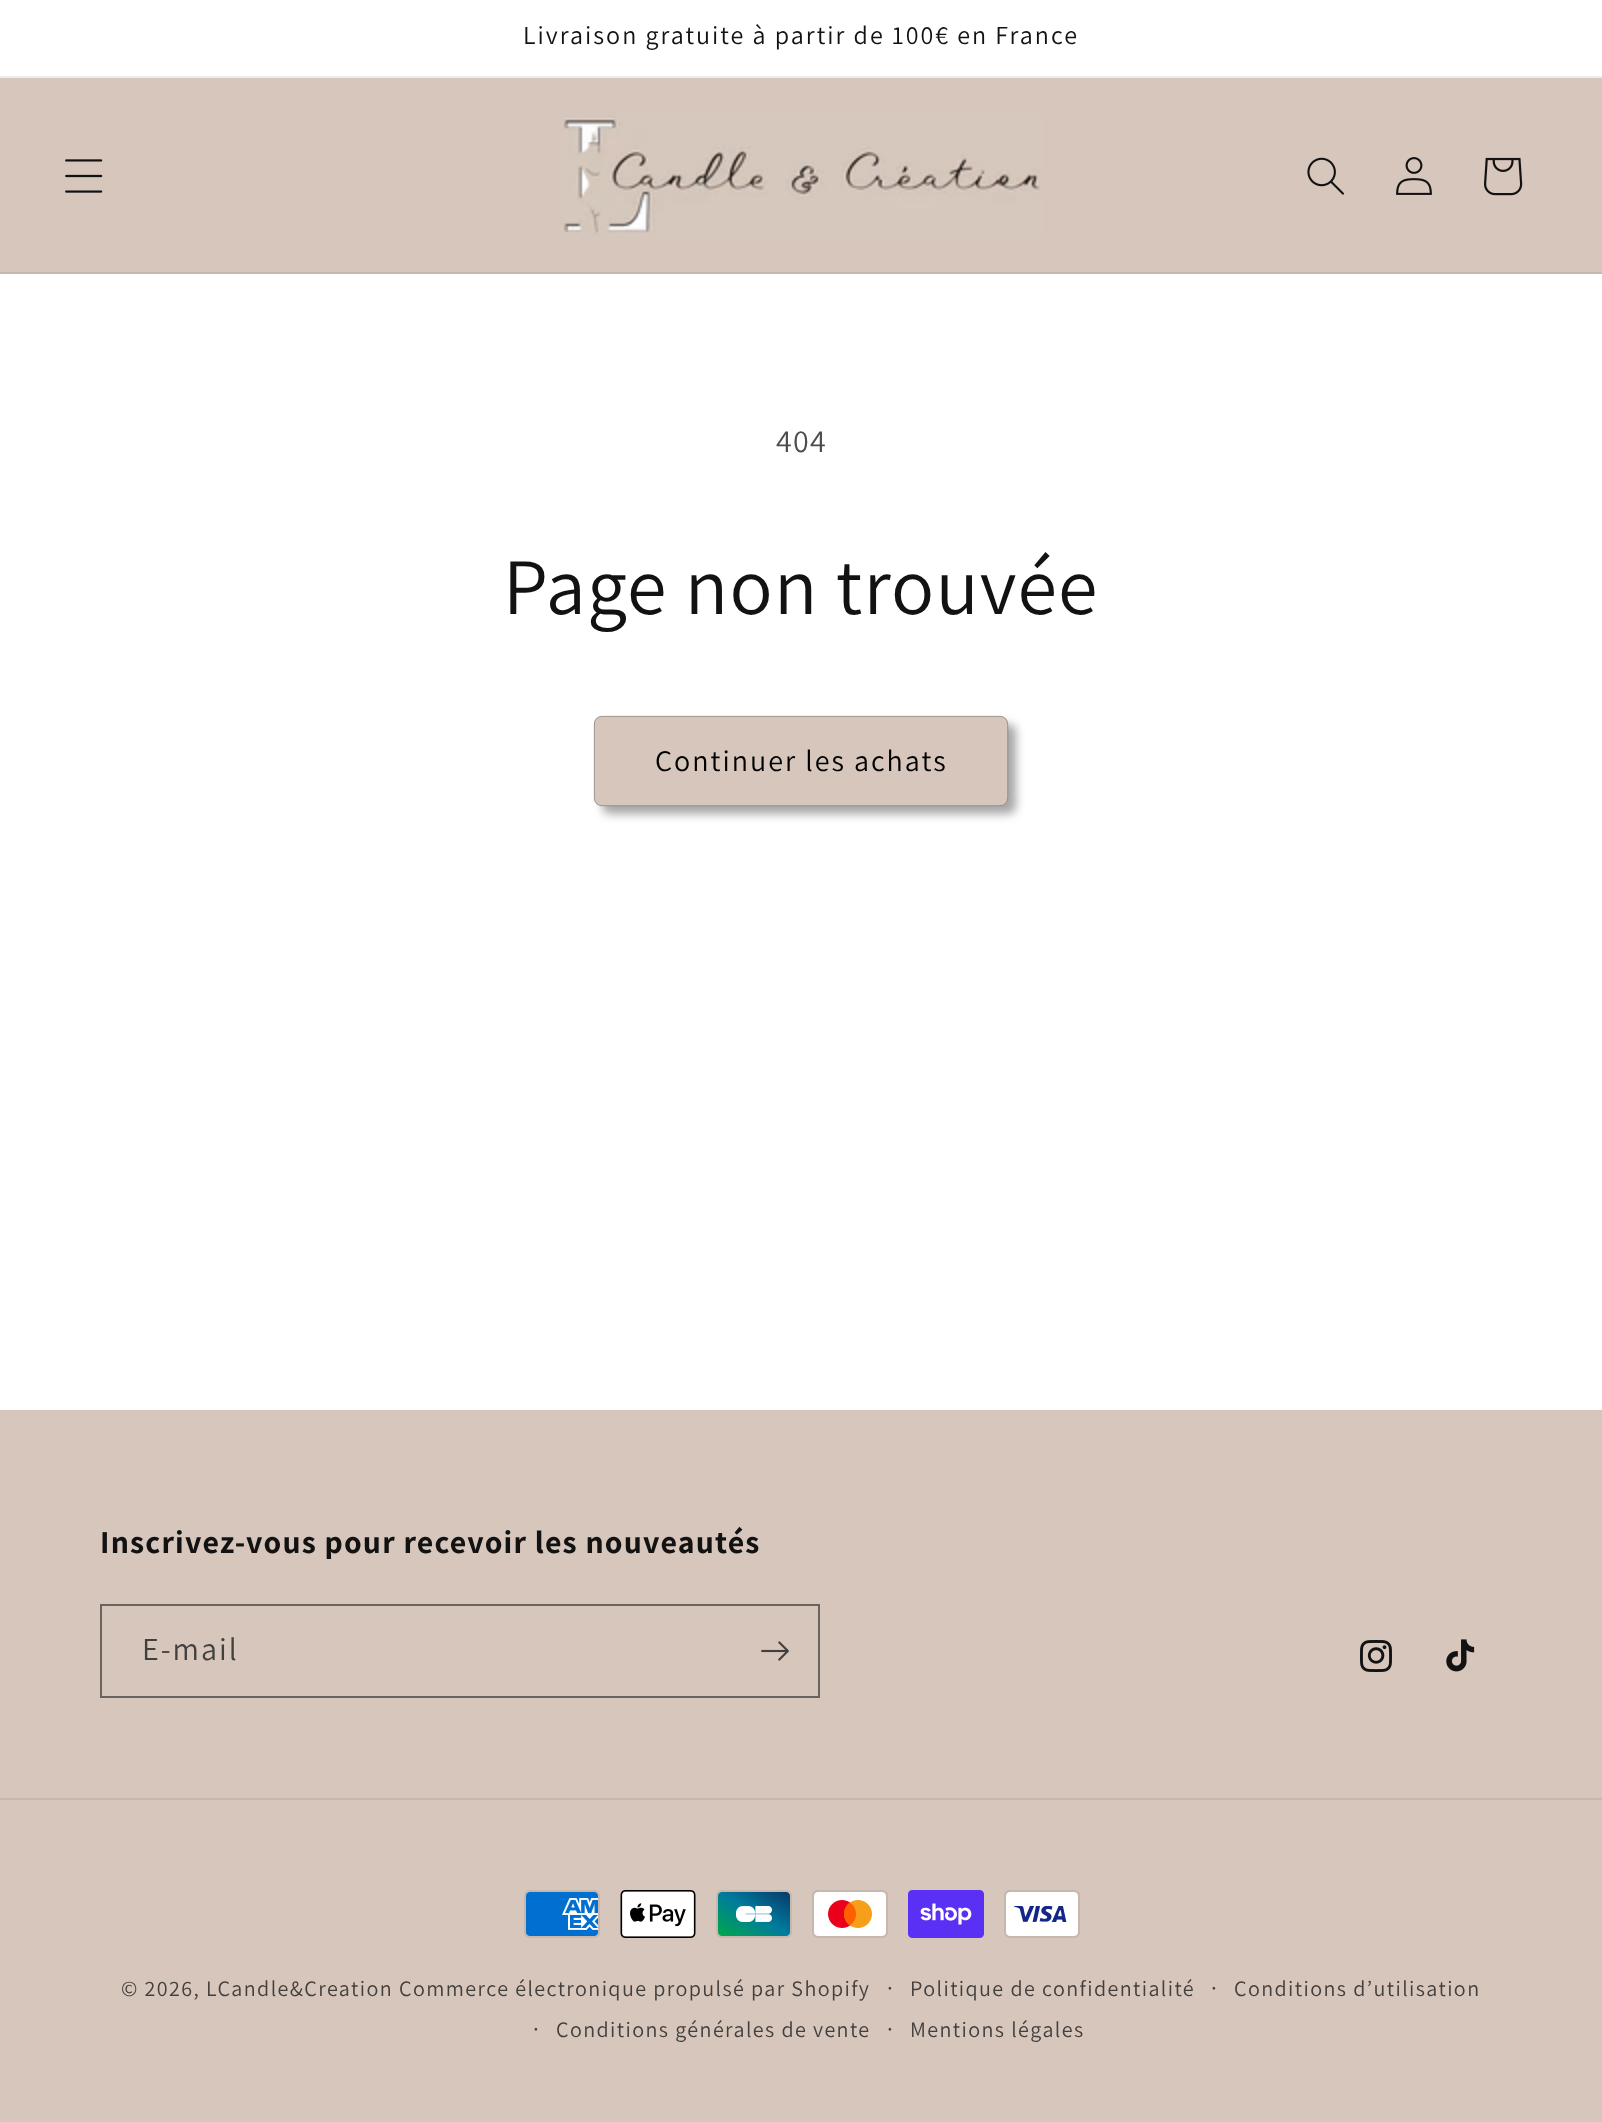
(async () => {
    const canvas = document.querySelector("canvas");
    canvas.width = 1602;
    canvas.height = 2122;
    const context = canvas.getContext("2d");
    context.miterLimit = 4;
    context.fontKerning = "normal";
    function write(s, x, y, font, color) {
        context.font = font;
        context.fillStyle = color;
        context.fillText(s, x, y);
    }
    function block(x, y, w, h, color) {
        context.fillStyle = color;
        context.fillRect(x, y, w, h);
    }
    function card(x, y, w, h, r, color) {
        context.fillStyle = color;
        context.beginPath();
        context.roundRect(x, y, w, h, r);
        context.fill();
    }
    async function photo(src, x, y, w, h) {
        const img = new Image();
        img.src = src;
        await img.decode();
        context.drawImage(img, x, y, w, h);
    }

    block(0, 0, 1602, 2122, "rgb(255, 255, 255)");
    block(0, 76, 1602, 2, "rgb(236, 236, 236)");
    context.letterSpacing = "2px";
    write("Livraison gratuite à partir de 100€ en France", 523, 44, "26px Assistant", "rgb(18, 18, 18)");
    block(0, 78, 1602, 194, "rgb(214, 198, 188)");
    block(0, 272, 1602, 2, "rgb(198, 184, 174)");
    await photo("media/1.png", 65, 159, 38, 34);
    await photo("media/2.png", 561, 114, 482, 124);
    await photo("media/3.png", 1307, 157, 37, 38);
    await photo("media/4.png", 1396, 157, 36, 38);
    await photo("media/5.png", 1484, 157, 39, 39);
    context.letterSpacing = "1.2px";
    write("404", 776, 452, "32px Assistant", "rgb(77, 77, 77)");
    write("Page non trouvée", 503, 614, "80px Assistant", "rgb(18, 18, 18)");
    context.fillStyle = "rgba(0, 0, 0, 0.35)";
    context.filter = "blur(5px)";
    context.beginPath();
    context.roundRect(602, 724, 414, 90, 8);
    context.fill();
    context.filter = "none";
    card(594, 716, 414, 90, 8, "rgb(214, 198, 188)");
    context.beginPath();
    context.roundRect(594.3, 716.3, 413.4, 89.4, 7.7);
    context.strokeStyle = "rgba(0, 0, 0, 0.45)";
    context.lineWidth = 0.6;
    context.stroke();
    context.letterSpacing = "2px";
    write("Continuer les achats", 655, 771, "30px Assistant", "rgb(0, 0, 0)");
    block(0, 1410, 1602, 712, "rgb(214, 198, 188)");
    context.letterSpacing = "1.2px";
    write("Inscrivez-vous pour recevoir les nouveautés", 100, 1553, "bold 32px Assistant", "rgb(18, 18, 18)");
    context.strokeStyle = "rgb(106, 99, 95)";
    context.lineWidth = 2;
    context.strokeRect(101, 1605, 718, 92);
    context.letterSpacing = "2px";
    write("E-mail", 142, 1660, "32px Assistant", "rgb(67, 63, 61)");
    await photo("media/6.png", 761, 1641, 28, 20);
    await photo("media/7.png", 1360, 1640, 32, 32);
    await photo("media/8.png", 1446, 1639, 29, 33);
    block(0, 1798, 1602, 2, "rgb(198, 184, 174)");
    await photo("media/9.png", 524, 1890, 76, 48);
    await photo("media/10.png", 620, 1890, 76, 48);
    await photo("media/11.png", 716, 1890, 76, 48);
    await photo("media/12.png", 812, 1890, 76, 48);
    await photo("media/13.png", 908, 1890, 76, 48);
    await photo("media/14.png", 1004, 1890, 76, 48);
    context.letterSpacing = "1.4px";
    write("Commerce électronique propulsé par Shopify", 399, 1996, "22px Assistant", "rgb(67, 63, 61)");
    write("© 2026, LCandle&Creation", 121, 1996, "22px Assistant", "rgb(67, 63, 61)");
    write("·", 887, 1996, "24px Assistant", "rgb(67, 63, 61)");
    write("Politique de confidentialité", 910, 1996, "22px Assistant", "rgb(67, 63, 61)");
    write("·", 1211, 1996, "24px Assistant", "rgb(67, 63, 61)");
    write("Conditions d’utilisation", 1234, 1996, "22px Assistant", "rgb(67, 63, 61)");
    write("·", 533, 2037, "24px Assistant", "rgb(67, 63, 61)");
    write("Conditions générales de vente", 556, 2037, "22px Assistant", "rgb(67, 63, 61)");
    write("·", 887, 2037, "24px Assistant", "rgb(67, 63, 61)");
    write("Mentions légales", 910, 2037, "22px Assistant", "rgb(67, 63, 61)");
})();
